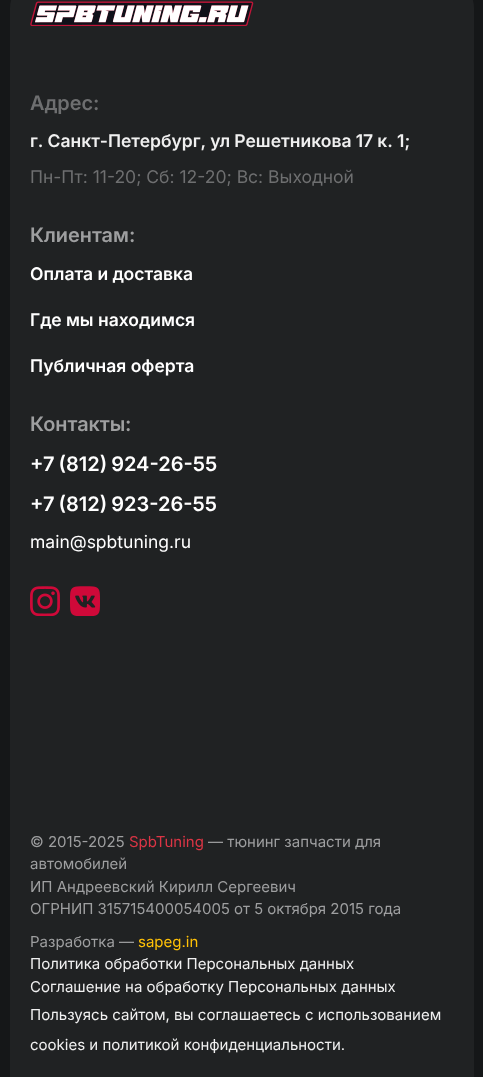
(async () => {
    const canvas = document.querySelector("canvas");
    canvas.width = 483;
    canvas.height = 1077;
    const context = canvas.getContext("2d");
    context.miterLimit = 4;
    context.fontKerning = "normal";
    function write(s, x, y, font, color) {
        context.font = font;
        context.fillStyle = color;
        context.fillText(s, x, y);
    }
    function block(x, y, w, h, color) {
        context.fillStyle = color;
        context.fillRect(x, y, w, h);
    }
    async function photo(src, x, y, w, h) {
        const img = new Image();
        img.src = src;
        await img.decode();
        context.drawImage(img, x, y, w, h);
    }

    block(0, 0, 483, 1077, "rgb(21, 23, 24)");
    context.fillStyle = "rgb(32, 34, 35)";
    context.beginPath();
    context.moveTo(40, -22);
    context.lineTo(444, -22);
    context.bezierCurveTo(460.5, -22, 474, -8.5, 474, 8);
    context.lineTo(474, 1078);
    context.lineTo(10, 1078);
    context.lineTo(10, 8);
    context.bezierCurveTo(10, -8.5, 23.5, -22, 40, -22);
    context.closePath();
    context.fill();
    await photo("media/1.png", 30, 1, 224, 25);
    write("Адрес", 30, 110, "600 20px Inter", "rgb(110, 111, 112)");
    write(":", 93, 110, "600 20px 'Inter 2'", "rgb(110, 111, 112)");
    context.wordSpacing = "-0.25px";
    write("г. Санкт-Петербург, ул Решетникова 17 к. 1;", 30, 147, "600 17.5px 'Inter 2'", "rgb(240, 240, 240)");
    context.wordSpacing = "0px";
    write("Пн-Пт: 11-20; Сб: 12-20; Вс: Выходной", 30, 183, "17.5px Inter", "rgb(110, 111, 112)");
    write("Клиентам", 30, 242, "600 20px Inter", "rgb(158, 159, 160)");
    write(":", 129, 242, "600 20px 'Inter 2'", "rgb(158, 159, 160)");
    write("Оплата и доставка", 30, 280, "600 17.5px 'Inter 2'", "rgb(255, 255, 255)");
    write("Где мы находимся", 30, 326, "600 17.5px 'Inter 2'", "rgb(255, 255, 255)");
    write("Публичная оферта", 30, 372, "600 17.5px 'Inter 2'", "rgb(255, 255, 255)");
    write("Контакты", 30, 431, "600 20px Inter", "rgb(158, 159, 160)");
    write(":", 125, 431, "600 20px 'Inter 2'", "rgb(158, 159, 160)");
    context.wordSpacing = "-1px";
    write("+7 (812) 924-26-55", 30, 471, "600 20px 'Inter 2'", "rgb(255, 255, 255)");
    write("+7 (812) 923-26-55", 30, 511, "600 20px 'Inter 2'", "rgb(255, 255, 255)");
    context.wordSpacing = "0px";
    write("main@spbtuning.ru", 30, 548, "17.5px Inter", "rgb(255, 255, 255)");
    await photo("media/2.png", 30, 586, 30, 30);
    await photo("media/3.png", 70, 586, 30, 30);
    write("© 2015-2025", 30, 847, "15px Inter", "rgb(158, 159, 160)");
    write("SpbTuning", 129, 847, "15px Inter", "rgb(220, 53, 69)");
    write("— тюнинг запчасти для", 208, 847, "15px Inter", "rgb(158, 159, 160)");
    write("автомобилей", 30, 869, "15px Inter", "rgb(158, 159, 160)");
    write("ИП Андреевский Кирилл Сергеевич", 30, 892, "15px Inter", "rgb(158, 159, 160)");
    write("ОГРНИП 315715400054005 от 5 октября 2015 года", 30, 914, "15px Inter", "rgb(158, 159, 160)");
    write("Разработка —", 30, 947, "15px Inter", "rgb(158, 159, 160)");
    write("sapeg.in", 138, 947, "15px Inter", "rgb(255, 193, 7)");
    write("Политика обработки Персональных данных", 30, 969, "15px Inter", "rgb(240, 240, 240)");
    write("Соглашение на обработку Персональных данных", 30, 992, "15px Inter", "rgb(240, 240, 240)");
    write("Пользуясь сайтом, вы соглашаетесь с использованием", 30, 1020, "15px Inter", "rgb(240, 240, 240)");
    write("cookies и политикой конфиденциальности.", 30, 1050, "15px Inter", "rgb(240, 240, 240)");
})();
